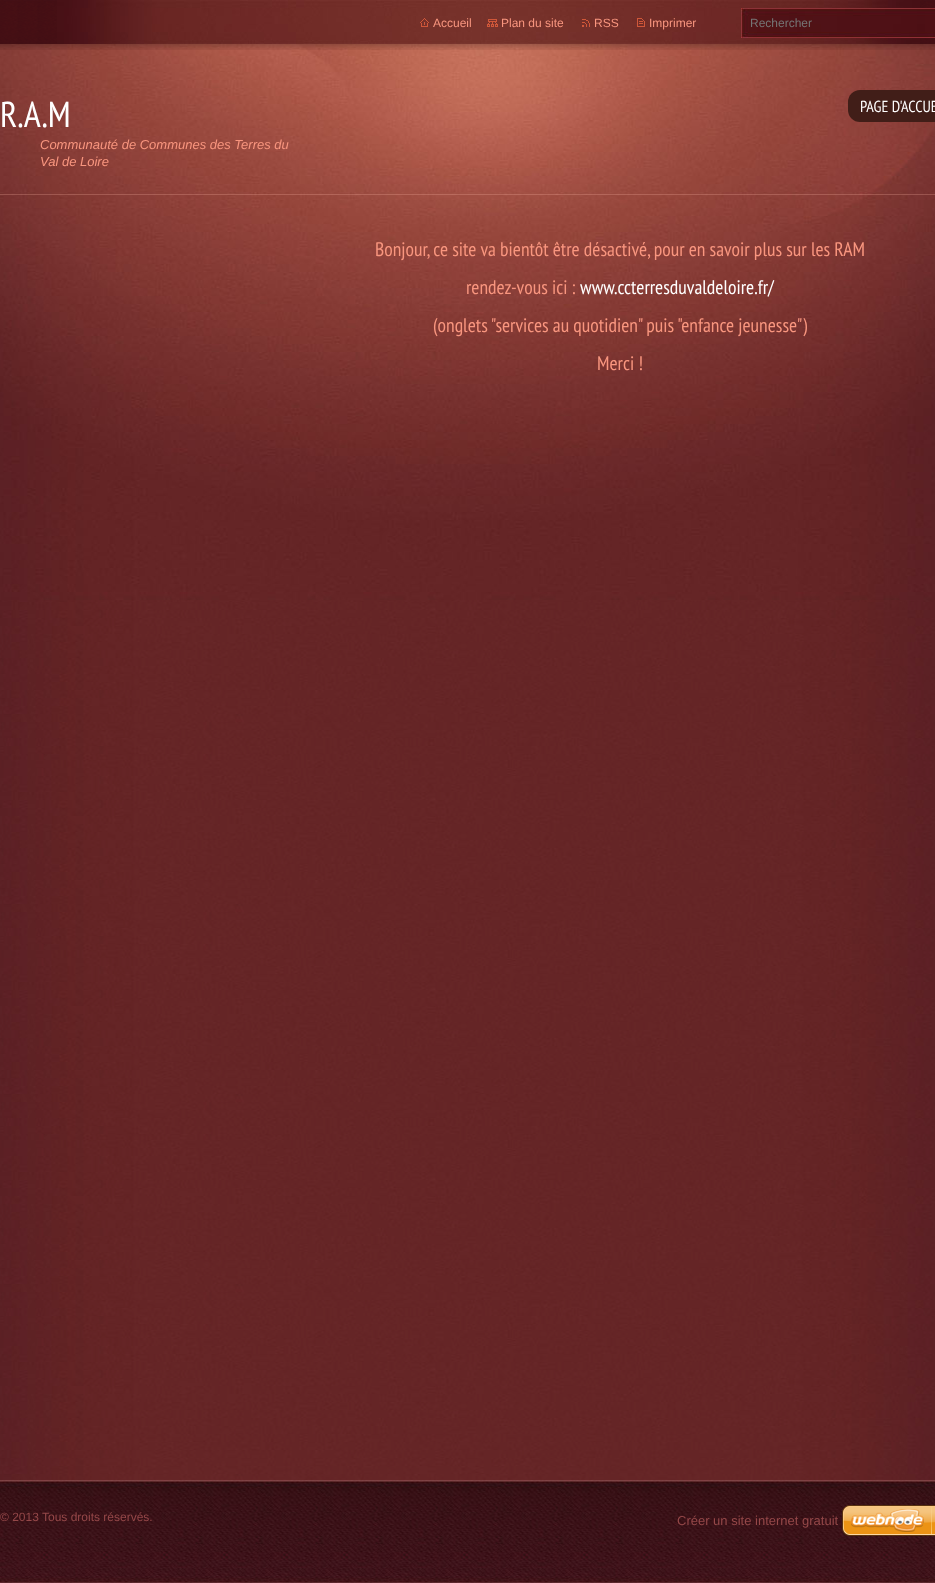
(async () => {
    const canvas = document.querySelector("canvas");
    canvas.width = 935;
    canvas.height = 1583;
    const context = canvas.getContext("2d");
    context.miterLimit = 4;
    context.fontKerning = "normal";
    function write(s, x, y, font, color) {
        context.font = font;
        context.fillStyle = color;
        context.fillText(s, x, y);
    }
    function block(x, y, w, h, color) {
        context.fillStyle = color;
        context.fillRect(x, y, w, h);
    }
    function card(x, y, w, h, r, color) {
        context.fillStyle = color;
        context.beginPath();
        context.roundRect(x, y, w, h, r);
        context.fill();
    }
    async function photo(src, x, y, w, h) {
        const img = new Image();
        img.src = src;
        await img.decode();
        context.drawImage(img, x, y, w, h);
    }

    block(0, 0, 935, 1583, "rgb(255, 255, 255)");
    await photo("media/1.png", 0, 600, 935, 880);
    await photo("media/2.png", 0, 44, 935, 556);
    block(0, 194, 935, 1, "rgba(251, 182, 166, 0.26)");
    await photo("media/3.png", 0, 0, 935, 50);
    await photo("media/4.png", 57, 0, 863, 44);
    await photo("media/5.png", 420, 18, 9, 9);
    write("Accueil", 433, 27, "12px Liberation Sans", "rgb(249, 150, 127)");
    await photo("media/6.png", 487, 19, 11, 8);
    write("Plan du site", 501, 27, "12px Liberation Sans", "rgb(249, 150, 127)");
    await photo("media/7.png", 582, 19, 8, 8);
    write("RSS", 594, 27, "12px Liberation Sans", "rgb(249, 150, 127)");
    await photo("media/8.png", 637, 18, 8, 9);
    write("Imprimer", 649, 27, "12px Liberation Sans", "rgb(249, 150, 127)");
    await photo("media/9.png", 741, 8, 194, 30);
    write("Rechercher", 750, 27, "12px Liberation Sans", "rgb(117, 117, 117)");
    write("R.A.M", 0, 127, "36px PT Sans Narrow", "rgb(255, 255, 255)");
    write("Communauté de Communes des Terres du", 40, 149, "italic 13px Liberation Sans", "rgb(249, 150, 127)");
    write("Val de Loire", 40, 166, "italic 13px Liberation Sans", "rgb(249, 150, 127)");
    card(848, 90, 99, 32, 12, "rgb(65, 30, 24)");
    write("PAGE D'ACCUE", 860, 112, "16px PT Sans Narrow", "rgb(255, 255, 255)");
    write("Bonjour, ce site va bientôt être désactivé, pour en savoir plus sur les RAM", 375, 256, "19.6px PT Sans Narrow", "rgb(249, 150, 127)");
    write("rendez-vous ici :", 466, 294, "19.6px PT Sans Narrow", "rgb(249, 150, 127)");
    write("www.ccterresduvaldeloire.fr/", 580, 294, "19.6px PT Sans Narrow", "rgb(255, 255, 255)");
    write("(onglets \"services au quotidien\" puis \"enfance jeunesse\")", 433, 332, "19.6px PT Sans Narrow", "rgb(249, 150, 127)");
    write("Merci !", 597, 370, "19.6px PT Sans Narrow", "rgb(249, 150, 127)");
    await photo("media/10.png", 0, 1480, 935, 103);
    write("© 2013 Tous droits réservés.", 0, 1521, "12px Liberation Sans", "rgb(149, 72, 73)");
    write("Créer un site internet gratuit", 677, 1525, "13px Liberation Sans", "rgb(149, 72, 73)");
    await photo("media/11.png", 842, 1505, 93, 31);
})();
